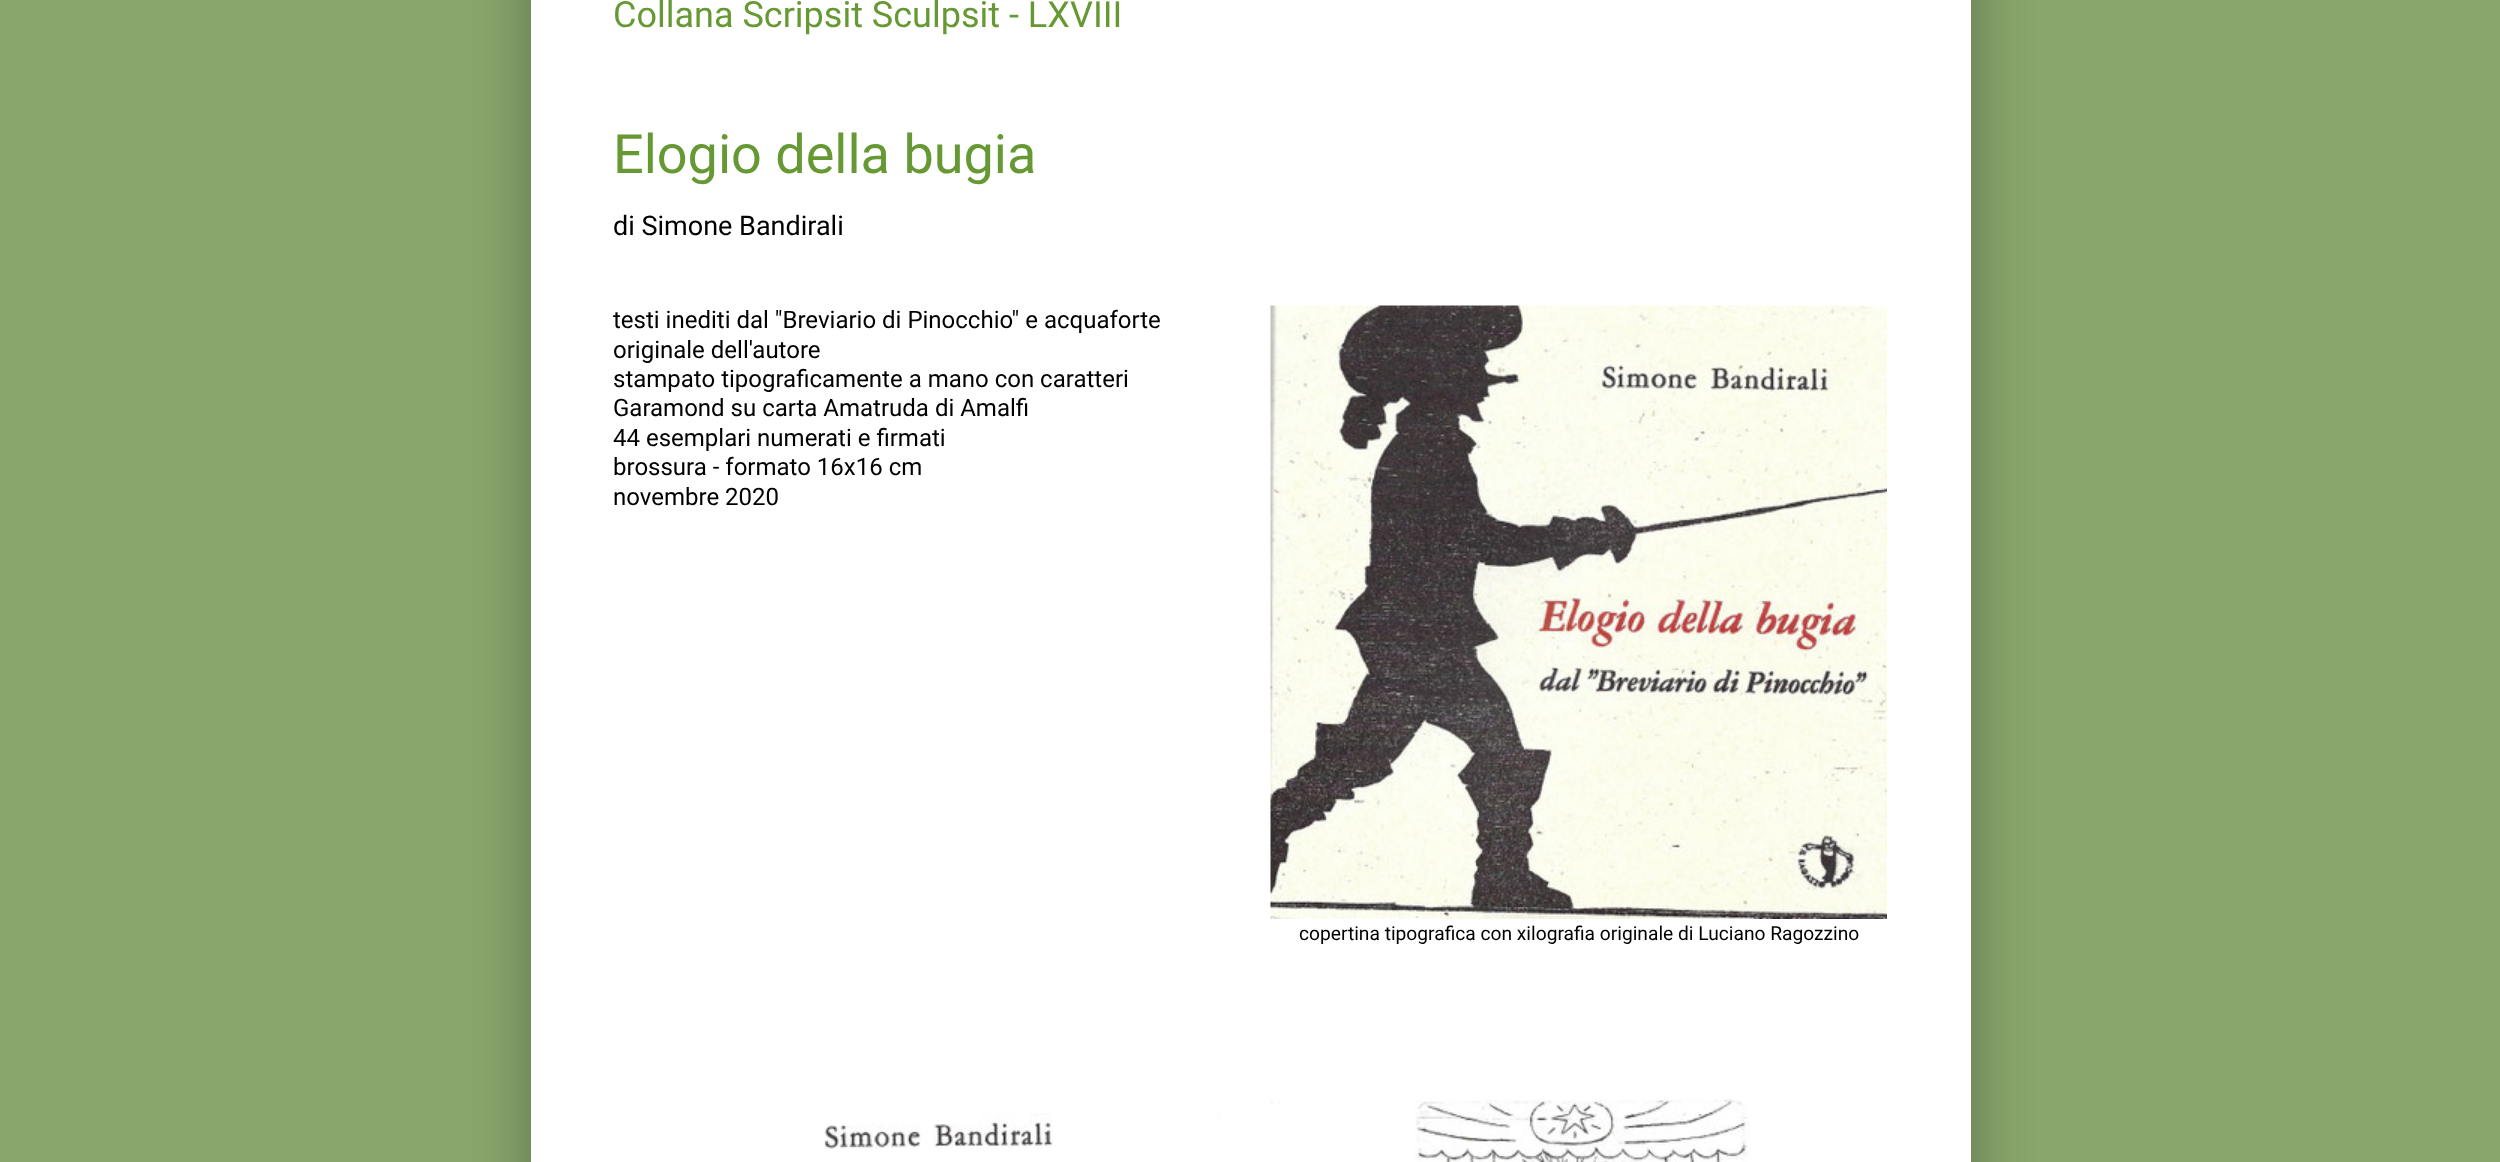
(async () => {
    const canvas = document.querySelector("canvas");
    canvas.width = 2500;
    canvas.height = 1162;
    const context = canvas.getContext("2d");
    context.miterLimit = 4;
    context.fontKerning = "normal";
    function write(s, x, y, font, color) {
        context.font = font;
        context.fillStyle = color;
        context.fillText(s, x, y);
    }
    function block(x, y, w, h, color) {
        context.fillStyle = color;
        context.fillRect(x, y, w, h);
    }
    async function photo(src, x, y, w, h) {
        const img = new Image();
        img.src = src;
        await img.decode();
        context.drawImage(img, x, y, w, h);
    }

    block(0, 0, 2500, 1162, "rgb(137, 166, 108)");
    context.fillStyle = "rgba(0, 0, 0, 0.3)";
    context.filter = "blur(30px)";
    context.beginPath();
    context.rect(531, -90, 1440, 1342);
    context.fill();
    context.filter = "none";
    block(531, 0, 1440, 1162, "rgb(255, 255, 255)");
    write("Collana Scripsit Sculpsit - LXVIII", 613, 27, "36px Roboto", "rgb(102, 153, 51)");
    write("Elogio della bugia", 613, 173, "54px Roboto", "rgb(102, 153, 51)");
    write("di Simone Bandirali", 613, 235, "27px Roboto", "rgb(0, 0, 0)");
    write("testi inediti dal \"Breviario di Pinocchio\" e acquaforte", 613, 328, "24px Roboto", "rgb(0, 0, 0)");
    write("originale dell'autore", 613, 358, "24px Roboto", "rgb(0, 0, 0)");
    write("stampato tipograficamente a mano con caratteri", 613, 387, "24px Roboto", "rgb(0, 0, 0)");
    write("Garamond su carta Amatruda di Amalfi", 613, 416, "24px Roboto", "rgb(0, 0, 0)");
    write("44 esemplari numerati e firmati", 613, 446, "24px Roboto", "rgb(0, 0, 0)");
    write("brossura - formato 16x16 cm", 613, 475, "24px Roboto", "rgb(0, 0, 0)");
    write("novembre 2020", 613, 505, "24px Roboto", "rgb(0, 0, 0)");
    await photo("media/1.png", 1270, 305, 617, 614);
    write("copertina tipografica con xilografia originale di Luciano Ragozzino", 1299, 940, "19.2px Roboto", "rgb(0, 0, 0)");
    await photo("media/2.png", 824, 1113, 397, 36);
    await photo("media/3.png", 1270, 1099, 480, 63);
})();
